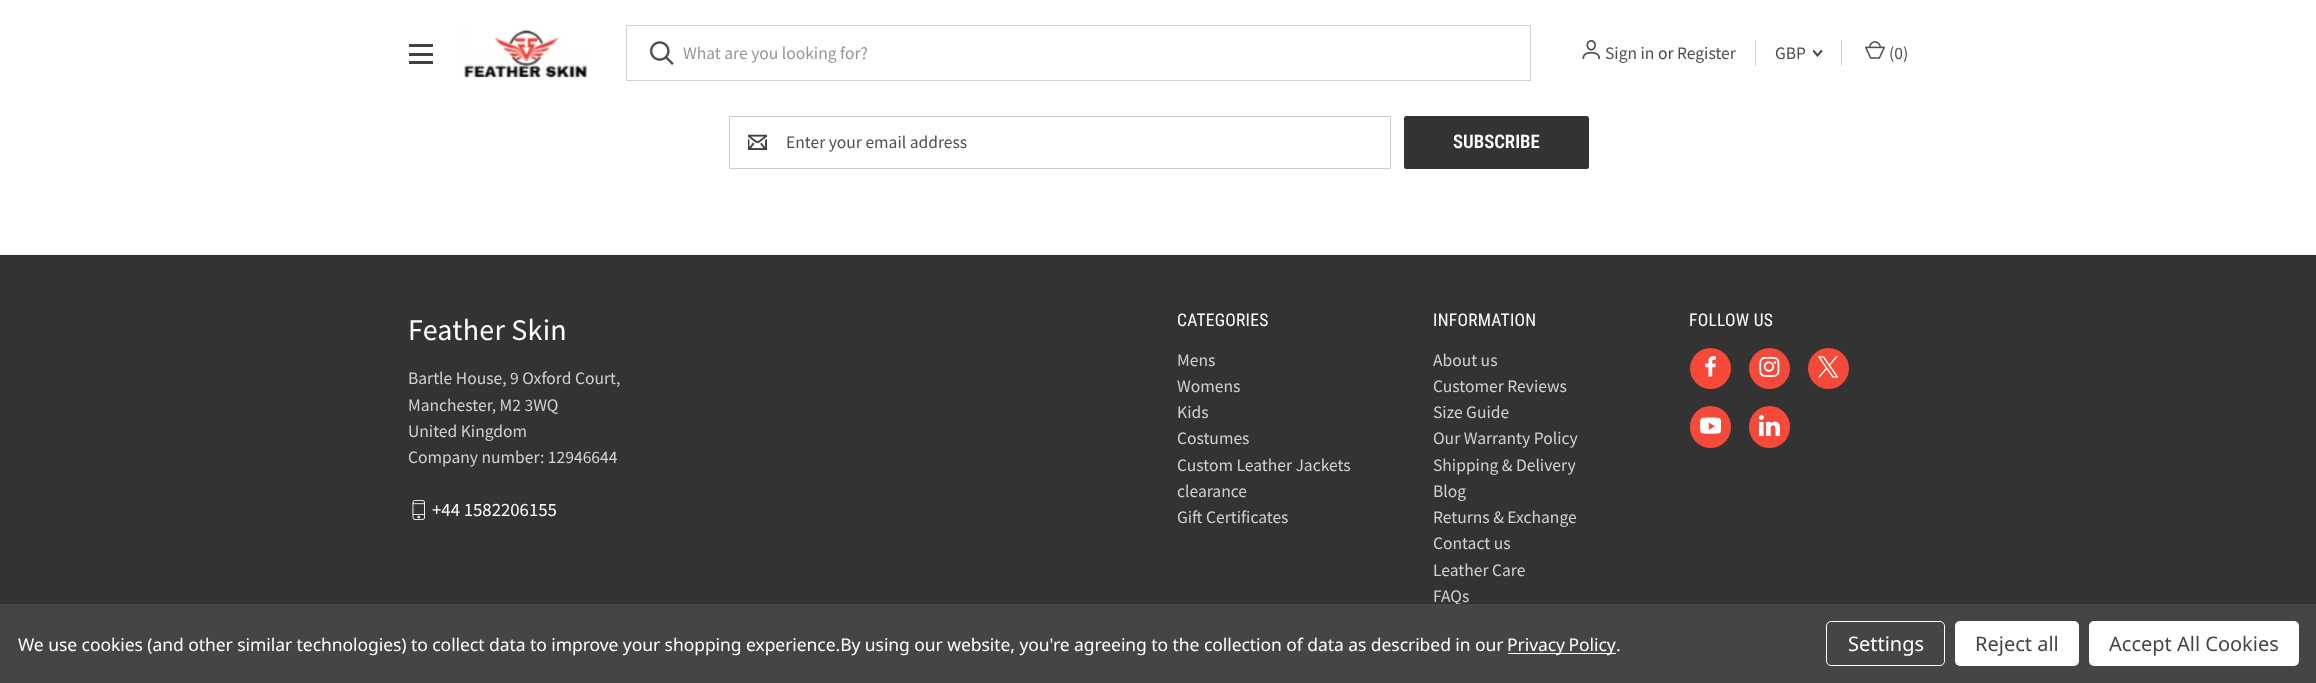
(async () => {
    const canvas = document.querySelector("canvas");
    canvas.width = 2316;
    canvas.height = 683;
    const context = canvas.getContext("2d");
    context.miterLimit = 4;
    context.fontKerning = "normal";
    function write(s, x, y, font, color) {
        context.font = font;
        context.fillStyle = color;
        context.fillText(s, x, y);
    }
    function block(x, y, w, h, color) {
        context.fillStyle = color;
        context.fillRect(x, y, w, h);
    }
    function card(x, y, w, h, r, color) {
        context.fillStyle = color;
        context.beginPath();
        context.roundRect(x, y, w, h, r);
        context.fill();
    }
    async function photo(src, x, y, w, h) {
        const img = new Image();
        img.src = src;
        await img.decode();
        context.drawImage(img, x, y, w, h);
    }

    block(0, 0, 2316, 683, "rgb(255, 255, 255)");
    block(409, 53, 24, 3, "rgb(66, 66, 66)");
    block(409, 44, 24, 3, "rgb(66, 66, 66)");
    block(409, 61, 24, 3, "rgb(66, 66, 66)");
    await photo("media/1.png", 463, 29, 125, 49);
    context.strokeStyle = "rgb(210, 210, 210)";
    context.strokeRect(626.5, 25.5, 904, 55);
    await photo("media/2.png", 650, 41, 24, 24);
    write("What are you looking for?", 683, 59, "17.5px Source Sans Pro", "rgb(150, 150, 150)");
    await photo("media/3.png", 1582, 40, 19, 19);
    write("Sign in", 1605, 59, "17.5px Source Sans Pro", "rgb(78, 78, 78)");
    write("or", 1658, 59, "17.5px Source Sans Pro", "rgb(69, 69, 69)");
    write("Register", 1677, 59, "17.5px Source Sans Pro", "rgb(78, 78, 78)");
    block(1755, 40, 1, 26, "rgb(210, 210, 210)");
    write("GBP", 1775, 59, "17.5px Source Sans Pro", "rgb(78, 78, 78)");
    await photo("media/4.png", 1813, 49, 10, 8);
    block(1841, 40, 1, 26, "rgb(210, 210, 210)");
    await photo("media/5.png", 1865, 41, 20, 18);
    write("(0)", 1889, 59, "17.5px Source Sans Pro", "rgb(78, 78, 78)");
    context.strokeStyle = "rgb(204, 204, 204)";
    context.strokeRect(729.5, 116.5, 661, 52);
    await photo("media/6.png", 748, 134, 19, 16);
    write("Enter your email address", 786, 148, "17.5px Source Sans Pro", "rgb(78, 78, 78)");
    card(1404, 116, 185, 53, 2.5, "rgb(51, 51, 51)");
    write("SUBSCRIBE", 1453, 148, "600 18.75px Roboto Condensed", "rgb(255, 255, 255)");
    block(0, 255, 2316, 349, "rgb(51, 51, 51)");
    block(0, 254, 2316, 1, "rgb(235, 235, 235)");
    context.letterSpacing = "0.25px";
    write("Feather Skin", 408, 340, "30px Source Sans Pro", "rgb(255, 255, 255)");
    context.letterSpacing = "0px";
    write("Bartle House, 9 Oxford Court,", 408, 384, "17.5px Source Sans Pro", "rgb(210, 210, 210)");
    write("Manchester, M2 3WQ", 408, 411, "17.5px Source Sans Pro", "rgb(210, 210, 210)");
    write("United Kingdom", 408, 437, "17.5px Source Sans Pro", "rgb(210, 210, 210)");
    write("Company number: 12946644", 408, 463, "17.5px Source Sans Pro", "rgb(210, 210, 210)");
    await photo("media/7.png", 412, 500, 13, 20);
    write("+44 1582206155", 432, 516, "18.75px Source Sans Pro", "rgb(255, 255, 255)");
    context.letterSpacing = "0.25px";
    write("CATEGORIES", 1177, 326, "17.5px Roboto Condensed", "rgb(255, 255, 255)");
    context.letterSpacing = "0px";
    write("Mens", 1177, 366, "17.5px Source Sans Pro", "rgb(210, 210, 210)");
    write("Womens", 1177, 392, "17.5px Source Sans Pro", "rgb(210, 210, 210)");
    write("Kids", 1177, 418, "17.5px Source Sans Pro", "rgb(210, 210, 210)");
    write("Costumes", 1177, 444, "17.5px Source Sans Pro", "rgb(210, 210, 210)");
    write("Custom Leather Jackets", 1177, 471, "17.5px Source Sans Pro", "rgb(210, 210, 210)");
    write("clearance", 1177, 497, "17.5px Source Sans Pro", "rgb(210, 210, 210)");
    write("Gift Certificates", 1177, 523, "17.5px Source Sans Pro", "rgb(210, 210, 210)");
    context.letterSpacing = "0.25px";
    write("INFORMATION", 1433, 326, "17.5px Roboto Condensed", "rgb(255, 255, 255)");
    context.letterSpacing = "0px";
    write("About us", 1433, 366, "17.5px Source Sans Pro", "rgb(210, 210, 210)");
    write("Customer Reviews", 1433, 392, "17.5px Source Sans Pro", "rgb(210, 210, 210)");
    write("Size Guide", 1433, 418, "17.5px Source Sans Pro", "rgb(210, 210, 210)");
    write("Our Warranty Policy", 1433, 444, "17.5px Source Sans Pro", "rgb(210, 210, 210)");
    write("Shipping & Delivery", 1433, 471, "17.5px Source Sans Pro", "rgb(210, 210, 210)");
    write("Blog", 1433, 497, "17.5px Source Sans Pro", "rgb(210, 210, 210)");
    write("Returns & Exchange", 1433, 523, "17.5px Source Sans Pro", "rgb(210, 210, 210)");
    write("Contact us", 1433, 549, "17.5px Source Sans Pro", "rgb(210, 210, 210)");
    write("Leather Care", 1433, 576, "17.5px Source Sans Pro", "rgb(210, 210, 210)");
    write("FAQs", 1433, 602, "17.5px Source Sans Pro", "rgb(210, 210, 210)");
    context.letterSpacing = "0.25px";
    write("FOLLOW US", 1689, 326, "17.5px Roboto Condensed", "rgb(255, 255, 255)");
    context.fillStyle = "rgb(245, 74, 58)";
    context.beginPath();
    context.arc(1710.5, 368.5, 20.5, 0, Math.PI * 2);
    context.fill();
    await photo("media/8.png", 1705, 356, 11, 21);
    context.beginPath();
    context.arc(1769.5, 368.5, 20.5, 0, Math.PI * 2);
    context.fill();
    await photo("media/9.png", 1759, 356, 21, 21);
    context.beginPath();
    context.arc(1828.5, 368.5, 20.5, 0, Math.PI * 2);
    context.fill();
    await photo("media/10.png", 1818, 356, 21, 22);
    card(1690, 406, 41, 42, 20.5, "rgb(245, 74, 58)");
    await photo("media/11.png", 1700, 417, 21, 17);
    card(1749, 406, 41, 42, 20.5, "rgb(245, 74, 58)");
    await photo("media/12.png", 1759, 415, 21, 21);
    block(0, 604, 2316, 79, "rgb(69, 69, 69)");
    context.letterSpacing = "-0.06px";
    write("We use cookies (and other similar technologies) to collect data to improve your shopping experience.By using our website, you're agreeing to the collection of data as described in our", 18, 651, "17.5px Noto Sans", "rgb(255, 255, 255)");
    block(1508, 653, 108, 1, "rgb(255, 255, 255)");
    context.wordSpacing = "-1px";
    write("Privacy Policy", 1507, 651, "17.5px Noto Sans", "rgb(255, 255, 255)");
    context.wordSpacing = "0px";
    write(".", 1616, 651, "17.5px Noto Sans", "rgb(255, 255, 255)");
    context.beginPath();
    context.roundRect(1826.5, 621.5, 118, 44, 4.5);
    context.strokeStyle = "rgb(255, 255, 255)";
    context.stroke();
    context.letterSpacing = "0px";
    write("Settings", 1848, 651, "20px Noto Sans", "rgb(255, 255, 255)");
    card(1955, 621, 124, 45, 5, "rgb(255, 255, 255)");
    write("Reject all", 1975, 651, "20px Noto Sans", "rgb(69, 69, 69)");
    card(2089, 621, 210, 45, 5, "rgb(255, 255, 255)");
    write("Accept All Cookies", 2109, 651, "20px Noto Sans", "rgb(69, 69, 69)");
})();
